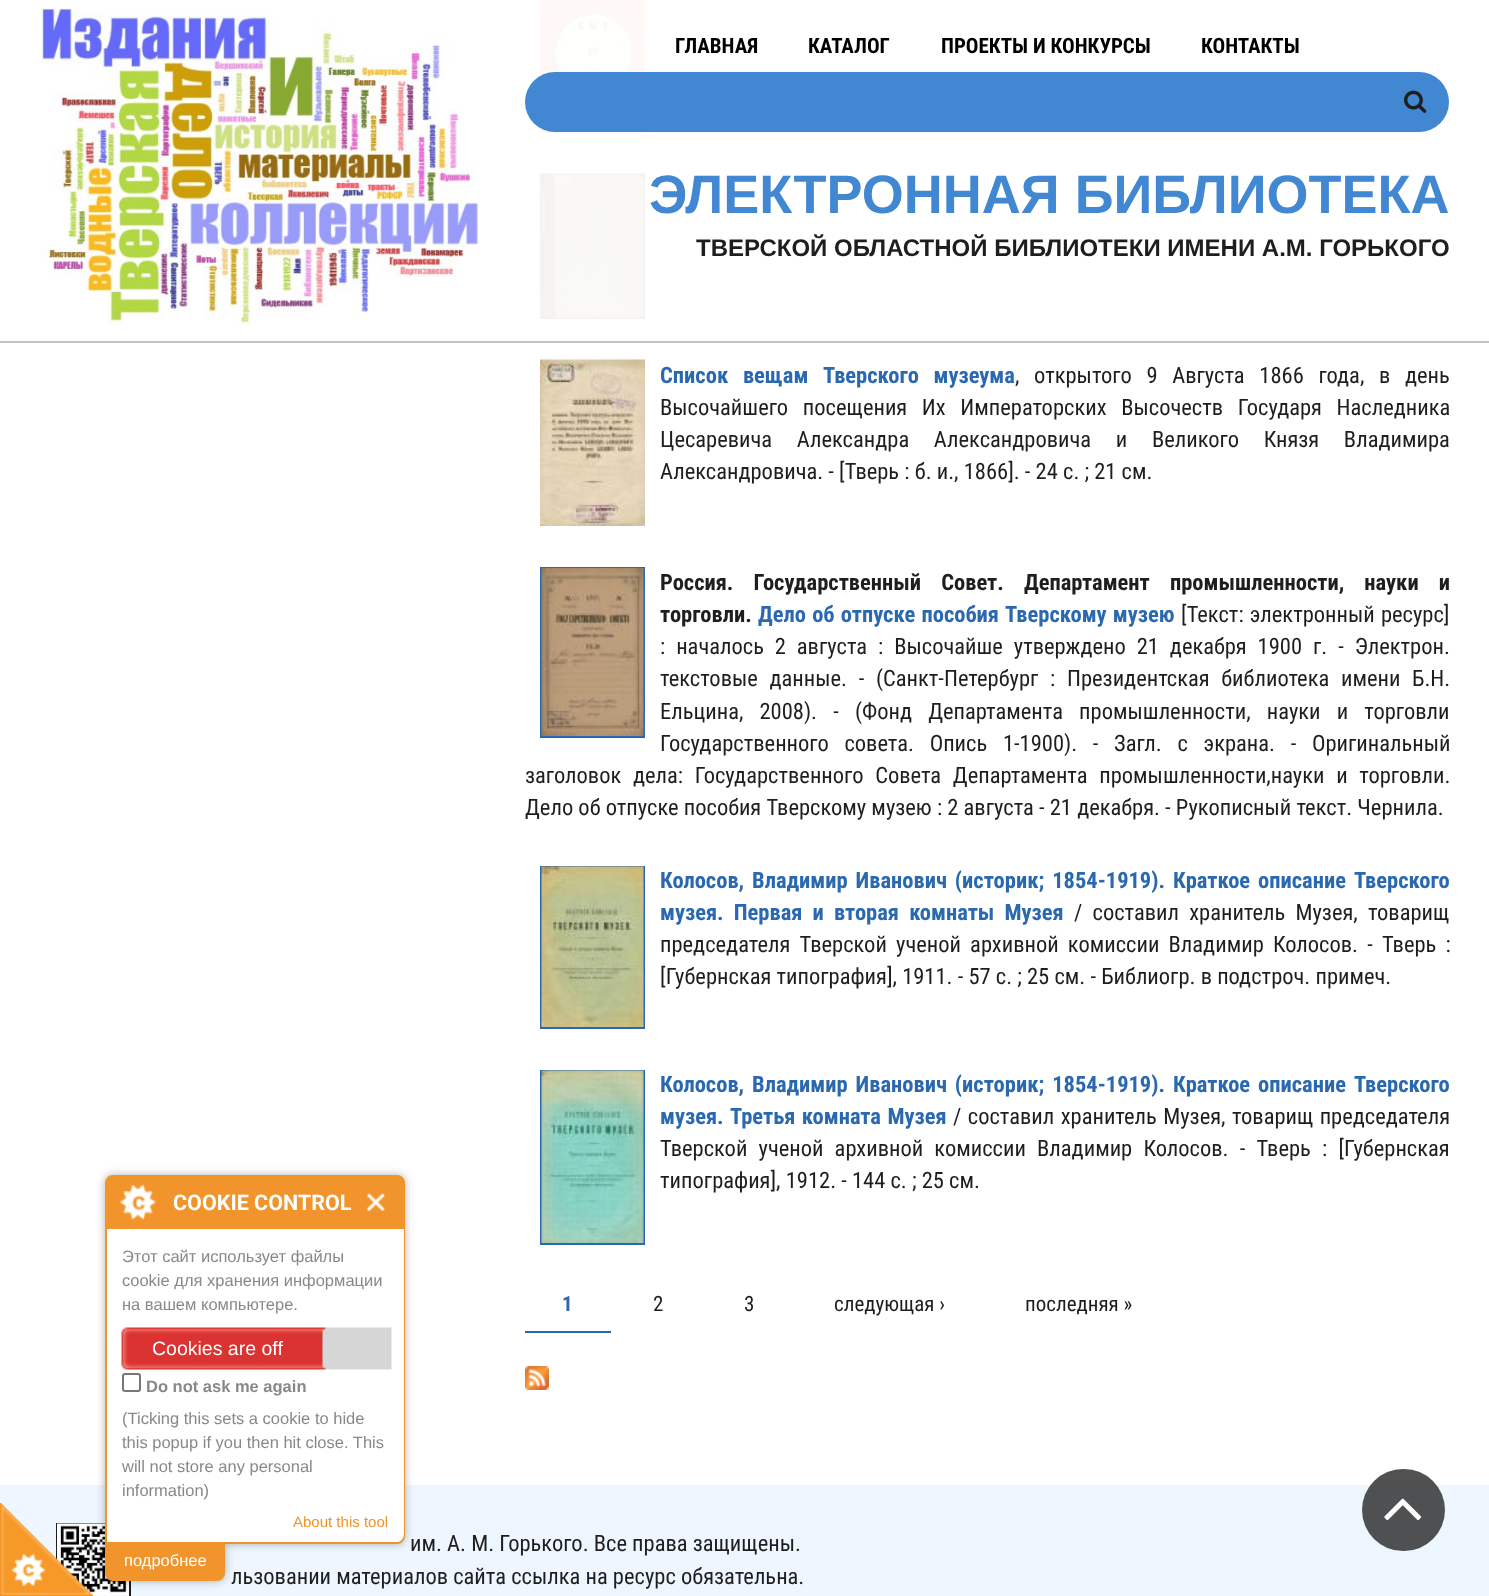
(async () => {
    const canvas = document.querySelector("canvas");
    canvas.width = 1489;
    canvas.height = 1596;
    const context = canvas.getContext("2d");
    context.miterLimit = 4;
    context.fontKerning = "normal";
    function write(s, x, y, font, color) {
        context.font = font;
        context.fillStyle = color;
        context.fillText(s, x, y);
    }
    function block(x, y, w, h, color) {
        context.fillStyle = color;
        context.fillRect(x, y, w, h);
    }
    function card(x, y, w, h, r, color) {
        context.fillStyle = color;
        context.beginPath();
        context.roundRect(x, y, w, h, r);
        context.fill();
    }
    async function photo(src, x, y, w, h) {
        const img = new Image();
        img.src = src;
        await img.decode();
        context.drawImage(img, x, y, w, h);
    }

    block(0, 0, 1489, 1596, "rgb(255, 255, 255)");
    block(0, 341, 1489, 2, "rgb(194, 194, 194)");
    await photo("media/1.png", 40, 8, 440, 317);
    write("ГЛАВНАЯ", 675, 53, "bold 21px Roboto Condensed", "rgb(0, 0, 0)");
    write("КАТАЛОГ", 808, 53, "bold 21px Roboto Condensed", "rgb(0, 0, 0)");
    write("ПРОЕКТЫ И КОНКУРСЫ", 941, 53, "bold 21px Roboto Condensed", "rgb(0, 0, 0)");
    write("КОНТАКТЫ", 1201, 53, "bold 21px Roboto Condensed", "rgb(0, 0, 0)");
    await photo("media/3.png", 540, 0, 105, 133);
    card(525, 72, 924, 60, 30, "rgb(65, 135, 209)");
    await photo("media/2.png", 1404, 90, 23, 23);
    write("ЭЛЕКТРОННАЯ БИБЛИОТЕКА", 649, 213, "bold 54px Liberation Sans", "rgb(65, 135, 209)");
    write("ТВЕРСКОЙ ОБЛАСТНОЙ БИБЛИОТЕКИ ИМЕНИ А.М. ГОРЬКОГО", 696, 256, "bold 24px Liberation Sans", "rgb(30, 30, 30)");
    await photo("media/4.png", 540, 173, 105, 146);
    await photo("media/5.png", 540, 359, 105, 167);
    context.wordSpacing = "9.5px";
    write("Список вещам Тверского музеума", 660, 383, "bold 22.5px Roboto Condensed", "rgb(42, 104, 175)");
    write(", открытого 9 Августа 1866 года, в день", 1015, 383, "22.5px Roboto Condensed", "rgb(30, 30, 30)");
    write("Высочайшего посещения Их Императорских Высочеств Государя Наследника", 660, 415, "22.5px Roboto Condensed", "rgb(30, 30, 30)");
    context.wordSpacing = "19.5px";
    write("Цесаревича Александра Александровича и Великого Князя Владимира", 660, 447, "22.5px Roboto Condensed", "rgb(30, 30, 30)");
    context.wordSpacing = "0px";
    write("Александровича. - [Тверь : б. и., 1866]. - 24 с. ; 21 см.", 660, 479, "22.5px Roboto Condensed", "rgb(30, 30, 30)");
    context.strokeStyle = "rgb(42, 104, 175)";
    context.lineWidth = 2;
    context.strokeRect(541, 568, 103, 169);
    await photo("media/6.png", 541, 568, 103, 168);
    context.wordSpacing = "15px";
    write("Россия. Государственный Совет. Департамент промышленности, науки и", 660, 590, "bold 22.5px Roboto Condensed", "rgb(30, 30, 30)");
    context.wordSpacing = "0px";
    write("торговли.", 660, 622, "bold 22.5px Roboto Condensed", "rgb(30, 30, 30)");
    context.wordSpacing = "1px";
    write("Дело об отпуске пособия Тверскому музею", 758, 622, "bold 22.5px Roboto Condensed", "rgb(42, 104, 175)");
    write("[Текст: электронный ресурс]", 1181, 622, "22.5px Roboto Condensed", "rgb(30, 30, 30)");
    context.wordSpacing = "5.75px";
    write(": началось 2 августа : Высочайше утверждено 21 декабря 1900 г. - Электрон.", 660, 654, "22.5px Roboto Condensed", "rgb(30, 30, 30)");
    context.wordSpacing = "6.5px";
    write("текстовые данные. - (Санкт-Петербург : Президентская библиотека имени Б.Н.", 660, 686, "22.5px Roboto Condensed", "rgb(30, 30, 30)");
    context.wordSpacing = "11px";
    write("Ельцина, 2008). - (Фонд Департамента промышленности, науки и торговли", 660, 719, "22.5px Roboto Condensed", "rgb(30, 30, 30)");
    context.wordSpacing = "10.5px";
    write("Государственного совета. Опись 1-1900). - Загл. с экрана. - Оригинальный", 660, 751, "22.5px Roboto Condensed", "rgb(30, 30, 30)");
    context.wordSpacing = "6.5px";
    write("заголовок дела: Государственного Совета Департамента промышленности,науки и торговли.", 525, 783, "22.5px Roboto Condensed", "rgb(30, 30, 30)");
    context.wordSpacing = "0px";
    write("Дело об отпуске пособия Тверскому музею : 2 августа - 21 декабря. - Рукописный текст. Чернила.", 525, 815, "22.5px Roboto Condensed", "rgb(30, 30, 30)");
    context.strokeRect(541, 867, 103, 161);
    await photo("media/7.png", 541, 866, 103, 161);
    context.wordSpacing = "2.75px";
    write("Колосов, Владимир Иванович (историк; 1854-1919). Краткое описание Тверского", 660, 888, "bold 22.5px Roboto Condensed", "rgb(42, 104, 175)");
    context.wordSpacing = "5px";
    write("музея. Первая и вторая комнаты Музея", 660, 920, "bold 22.5px Roboto Condensed", "rgb(42, 104, 175)");
    write("/ составил хранитель Музея, товарищ", 1074, 920, "22.5px Roboto Condensed", "rgb(30, 30, 30)");
    context.wordSpacing = "4px";
    write("председателя Тверской ученой архивной комиссии Владимир Колосов. - Тверь :", 660, 952, "22.5px Roboto Condensed", "rgb(30, 30, 30)");
    context.wordSpacing = "0px";
    write("[Губернская типография], 1911. - 57 с. ; 25 см. - Библиогр. в подстроч. примеч.", 660, 984, "22.5px Roboto Condensed", "rgb(30, 30, 30)");
    context.strokeRect(541, 1071, 103, 173);
    await photo("media/8.png", 541, 1070, 103, 173);
    context.wordSpacing = "2.75px";
    write("Колосов, Владимир Иванович (историк; 1854-1919). Краткое описание Тверского", 660, 1092, "bold 22.5px Roboto Condensed", "rgb(42, 104, 175)");
    context.wordSpacing = "1.25px";
    write("музея. Третья комната Музея", 660, 1124, "bold 22.5px Roboto Condensed", "rgb(42, 104, 175)");
    write("/ составил хранитель Музея, товарищ председателя", 953, 1124, "22.5px Roboto Condensed", "rgb(30, 30, 30)");
    context.wordSpacing = "6px";
    write("Тверской ученой архивной комиссии Владимир Колосов. - Тверь : [Губернская", 660, 1156, "22.5px Roboto Condensed", "rgb(30, 30, 30)");
    context.wordSpacing = "0px";
    write("типография], 1912. - 144 с. ; 25 см.", 660, 1188, "22.5px Roboto Condensed", "rgb(30, 30, 30)");
    write("1", 562, 1311, "bold 21px Roboto Condensed", "rgb(42, 104, 175)");
    block(525, 1331, 86, 2, "rgb(42, 104, 175)");
    write("2", 653, 1311, "21px Roboto Condensed", "rgb(30, 30, 30)");
    write("3", 744, 1311, "21px Roboto Condensed", "rgb(30, 30, 30)");
    write("следующая ›", 834, 1311, "21px Roboto Condensed", "rgb(30, 30, 30)");
    write("последняя »", 1025, 1311, "21px Roboto Condensed", "rgb(30, 30, 30)");
    await photo("media/9.png", 525, 1366, 24, 24);
    block(0, 1485, 1489, 111, "rgb(238, 247, 255)");
    card(1362, 1469, 83, 82, 41, "rgba(37, 37, 37, 0.8)");
    await photo("media/10.png", 1384, 1498, 38, 23);
    context.strokeStyle = "rgb(30, 30, 30)";
    context.strokeRect(57, 1524, 73, 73);
    await photo("media/11.png", 57, 1523, 72, 73);
    write("им. А. М. Горького. Все права защищены.", 410, 1551, "22.5px Roboto Condensed", "rgb(30, 30, 30)");
    write("льзовании материалов сайта ссылка на ресурс обязательна.", 231, 1584, "22.5px Roboto Condensed", "rgb(30, 30, 30)");
    await photo("media/12.png", 0, 1503, 93, 93);
    context.fillStyle = "rgba(0, 0, 0, 0.3)";
    context.filter = "blur(4px)";
    context.beginPath();
    context.roundRect(105, 1175, 300, 369, 8);
    context.fill();
    context.filter = "none";
    context.fillStyle = "rgb(255, 255, 255)";
    context.beginPath();
    context.roundRect(106, 1176, 298, 367, [7, 7, 7, 0]);
    context.fill();
    context.strokeStyle = "rgb(240, 148, 43)";
    context.stroke();
    context.fillStyle = "rgba(0, 0, 0, 0.3)";
    context.filter = "blur(4px)";
    context.beginPath();
    context.roundRect(105, 1541, 120, 40, 8);
    context.fill();
    context.filter = "none";
    context.fillStyle = "rgb(240, 148, 43)";
    context.beginPath();
    context.roundRect(105, 1541, 120, 40, [0, 0, 8, 8]);
    context.fill();
    context.fillStyle = "rgb(255, 255, 255)";
    context.beginPath();
    context.roundRect(107, 1176, 297, 366, [8, 8, 8, 0]);
    context.fill();
    context.fillStyle = "rgb(240, 148, 43)";
    context.beginPath();
    context.roundRect(107, 1176, 297, 53, [5, 5, 0, 0]);
    context.fill();
    await photo("media/13.png", 120, 1185, 37, 35);
    write("COOKIE CONTROL", 173, 1210, "bold 21.5px Roboto", "rgb(255, 255, 255)");
    await photo("media/14.png", 367, 1192, 19, 20);
    write("Этот сайт использует файлы", 122, 1262, "16.5px Liberation Sans", "rgb(136, 136, 136)");
    write("cookie для хранения информации", 122, 1286, "16.5px Liberation Sans", "rgb(136, 136, 136)");
    write("на вашем компьютере.", 122, 1310, "16.5px Liberation Sans", "rgb(136, 136, 136)");
    await photo("media/15.png", 121, 1327, 271, 43);
    write("Cookies are off", 152, 1355, "19.5px Liberation Sans", "rgb(255, 255, 255)");
    context.beginPath();
    context.roundRect(123, 1374, 17, 17, 2);
    context.strokeStyle = "rgb(118, 118, 118)";
    context.stroke();
    write("Do not ask me again", 146, 1392, "bold 16.5px Liberation Sans", "rgb(136, 136, 136)");
    write("(Ticking this sets a cookie to hide", 122, 1424, "16.5px Liberation Sans", "rgb(136, 136, 136)");
    write("this popup if you then hit close. This", 122, 1448, "16.5px Liberation Sans", "rgb(136, 136, 136)");
    write("will not store any personal", 122, 1472, "16.5px Liberation Sans", "rgb(136, 136, 136)");
    write("information)", 122, 1496, "16.5px Liberation Sans", "rgb(136, 136, 136)");
    write("About this tool", 293, 1527, "15px Liberation Sans", "rgb(240, 148, 43)");
    write("подробнее", 124, 1566, "16.5px Liberation Sans", "rgb(255, 255, 255)");
})();
